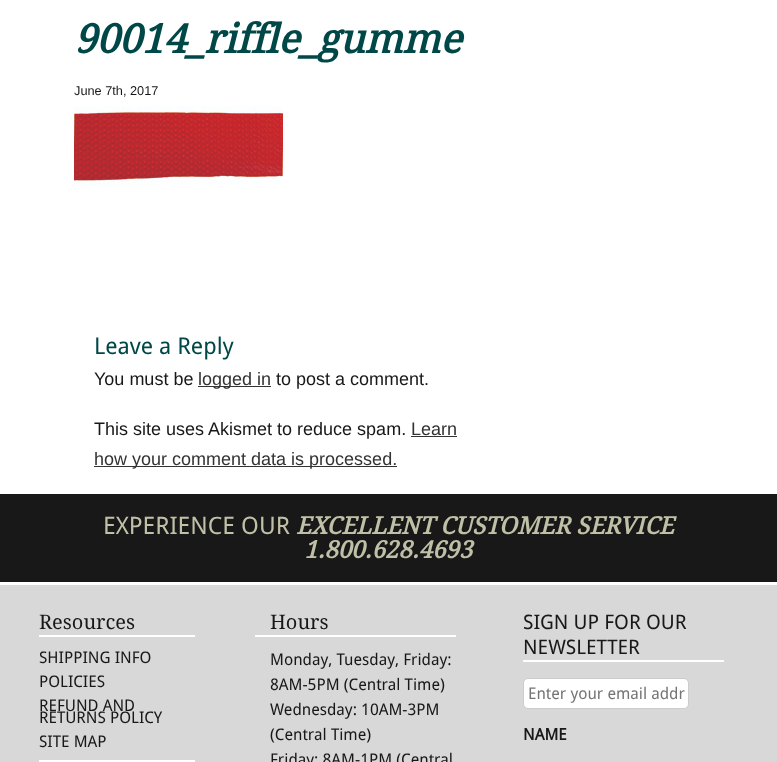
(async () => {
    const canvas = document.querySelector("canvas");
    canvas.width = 777;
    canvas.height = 762;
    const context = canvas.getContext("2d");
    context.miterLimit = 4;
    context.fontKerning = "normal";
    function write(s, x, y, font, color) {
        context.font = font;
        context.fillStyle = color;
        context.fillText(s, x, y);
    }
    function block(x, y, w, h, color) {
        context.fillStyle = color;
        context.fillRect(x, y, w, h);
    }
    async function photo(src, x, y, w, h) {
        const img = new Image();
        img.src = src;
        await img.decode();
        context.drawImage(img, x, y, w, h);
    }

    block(0, 0, 777, 762, "rgb(255, 255, 255)");
    write("90014_riffle_gumme", 74, 53, "italic bold 40px Droid Serif", "rgb(0, 72, 71)");
    write("June 7th, 2017", 74, 95, "12.75px Liberation Sans", "rgb(24, 24, 24)");
    await photo("media/1.png", 74, 106, 209, 80);
    write("Leave a Reply", 94, 354, "23px Droid Sans", "rgb(0, 72, 71)");
    write("You must be", 94, 385, "18px Liberation Sans", "rgb(24, 24, 24)");
    block(198, 386, 73, 1, "rgb(51, 51, 51)");
    write("logged in", 198, 385, "18px Liberation Sans", "rgb(51, 51, 51)");
    write("to post a comment.", 276, 385, "18px Liberation Sans", "rgb(24, 24, 24)");
    write("This site uses Akismet to reduce spam.", 94, 435, "18px Liberation Sans", "rgb(24, 24, 24)");
    write("Learn", 411, 435, "18px Liberation Sans", "rgb(51, 51, 51)");
    block(411, 436, 46, 1, "rgb(51, 51, 51)");
    block(94, 466, 303, 1, "rgb(51, 51, 51)");
    write("how your comment data is processed.", 94, 465, "18px Liberation Sans", "rgb(51, 51, 51)");
    block(0, 494, 777, 88, "rgb(24, 24, 24)");
    write("EXPERIENCE OUR", 103, 534, "24px Droid Sans", "rgb(192, 192, 167)");
    write("EXCELLENT CUSTOMER SERVICE", 296, 534, "italic bold 24px Droid Serif", "rgb(192, 192, 167)");
    write("1.800.628.4693", 304, 558, "italic bold 24px Droid Serif", "rgb(192, 192, 167)");
    block(0, 585, 777, 177, "rgb(216, 216, 216)");
    block(39, 635, 156, 2, "rgb(255, 255, 255)");
    write("Resources", 39, 629, "20px Droid Serif", "rgb(24, 24, 24)");
    write("SHIPPING INFO", 39, 663, "16px Droid Sans", "rgb(24, 24, 24)");
    write("POLICIES", 39, 687, "16px Droid Sans", "rgb(24, 24, 24)");
    write("REFUND AND", 39, 711, "16px Droid Sans", "rgb(24, 24, 24)");
    write("RETURNS POLICY", 39, 723, "16px Droid Sans", "rgb(24, 24, 24)");
    write("SITE MAP", 39, 747, "16px Droid Sans", "rgb(24, 24, 24)");
    block(39, 760, 156, 2, "rgb(255, 255, 255)");
    block(255, 635, 201, 2, "rgb(255, 255, 255)");
    write("Hours", 270, 629, "20px Droid Serif", "rgb(24, 24, 24)");
    write("Monday, Tuesday, Friday:", 270, 665, "16px Droid Sans", "rgb(24, 24, 24)");
    write("8AM-5PM (Central Time)", 270, 690, "16px Droid Sans", "rgb(24, 24, 24)");
    write("Wednesday: 10AM-3PM", 270, 715, "16px Droid Sans", "rgb(24, 24, 24)");
    write("(Central Time)", 270, 740, "16px Droid Sans", "rgb(24, 24, 24)");
    write("Friday: 8AM-1PM (Central", 270, 765, "16px Droid Sans", "rgb(24, 24, 24)");
    block(523, 660, 201, 2, "rgb(255, 255, 255)");
    write("SIGN UP FOR OUR", 523, 629, "20px Droid Sans", "rgb(24, 24, 24)");
    write("NEWSLETTER", 523, 654, "20px Droid Sans", "rgb(24, 24, 24)");
    context.fillStyle = "rgb(255, 255, 255)";
    context.beginPath();
    context.roundRect(523.5, 678.5, 165, 30, 4.5);
    context.fill();
    context.strokeStyle = "rgb(204, 204, 204)";
    context.stroke();
    write("Enter your email addr", 528, 699, "16px Droid Sans", "rgb(117, 117, 117)");
    write("NAME", 523, 740, "bold 16px Droid Sans", "rgb(24, 24, 24)");
})();
